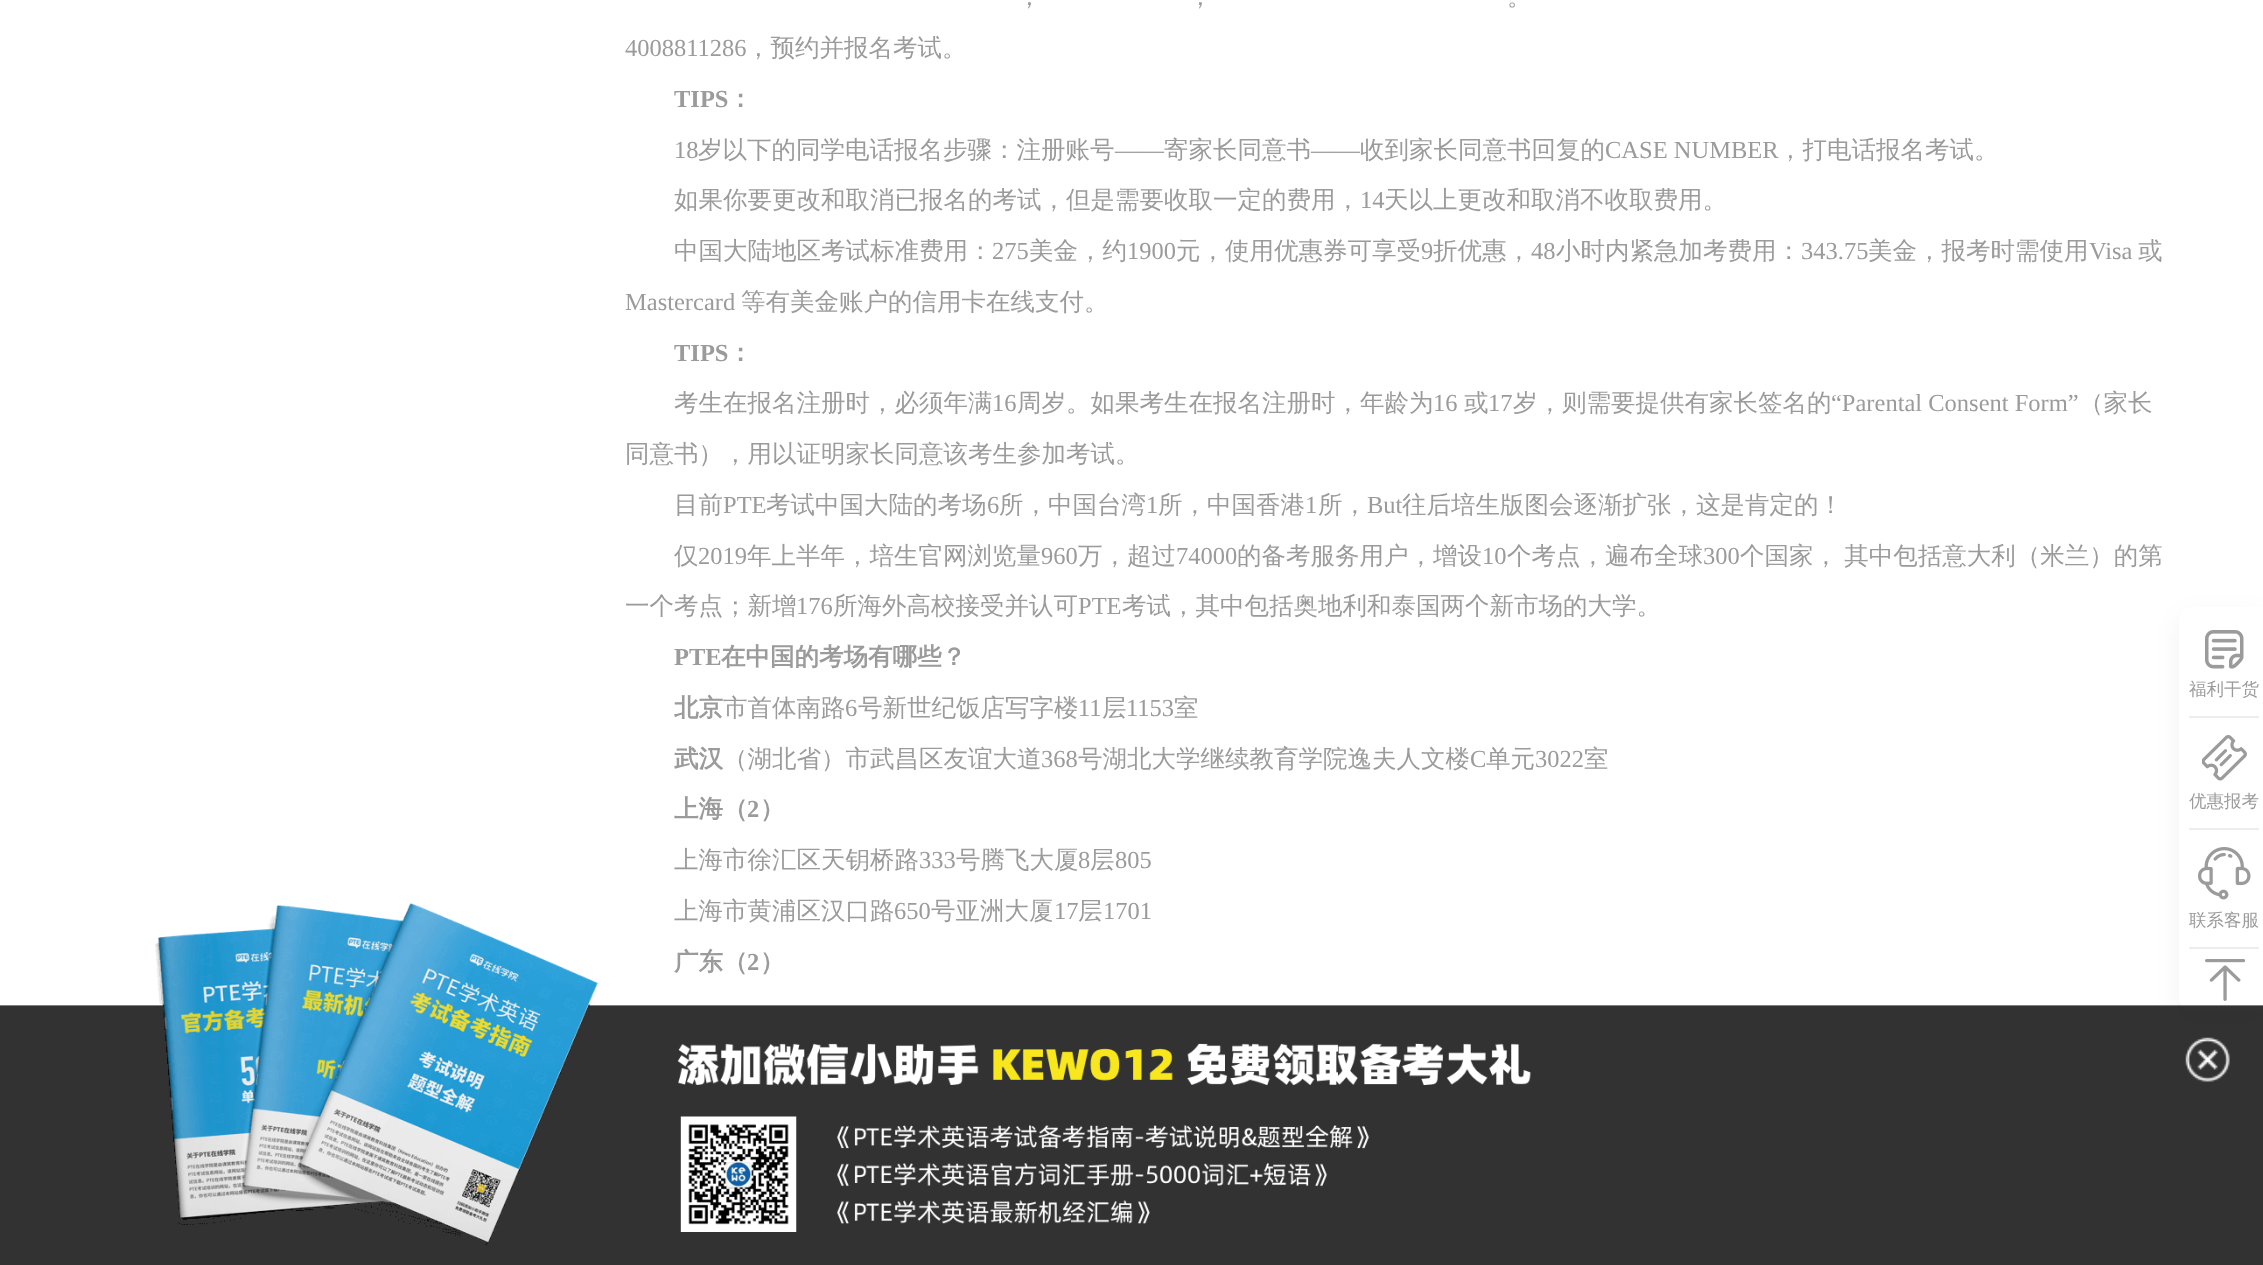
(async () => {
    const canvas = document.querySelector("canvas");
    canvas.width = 2263;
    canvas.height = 1265;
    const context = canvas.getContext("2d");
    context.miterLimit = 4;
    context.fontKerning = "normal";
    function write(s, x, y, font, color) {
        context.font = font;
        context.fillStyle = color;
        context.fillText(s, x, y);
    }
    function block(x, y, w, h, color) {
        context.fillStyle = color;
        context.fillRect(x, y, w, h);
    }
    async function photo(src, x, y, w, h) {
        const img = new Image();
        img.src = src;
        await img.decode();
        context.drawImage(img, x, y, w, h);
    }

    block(0, 0, 2263, 1265, "rgb(255, 255, 255)");
    write("，", 1017, 5, "500 24.5px WenQuanYi Zen Hei", "rgb(155, 155, 155)");
    write("，", 1188, 5, "500 24.5px WenQuanYi Zen Hei", "rgb(155, 155, 155)");
    write("。", 1507, 5, "500 24.5px WenQuanYi Zen Hei", "rgb(155, 155, 155)");
    write("4008811286", 625, 56, "24.5px Liberation Serif", "rgb(155, 155, 155)");
    write("，预约并报名考试。", 746, 56, "500 24.5px WenQuanYi Zen Hei", "rgb(155, 155, 155)");
    write("TIPS", 674, 107, "bold 24.5px Liberation Serif", "rgb(155, 155, 155)");
    write("：", 728, 107, "bold 24.5px WenQuanYi Zen Hei", "rgb(155, 155, 155)");
    write("18", 674, 158, "24.5px Liberation Serif", "rgb(155, 155, 155)");
    write("岁以下的同学电话报名步骤：注册账号", 698, 158, "500 24.5px WenQuanYi Zen Hei", "rgb(155, 155, 155)");
    write("——", 1115, 158, "24.5px Liberation Serif", "rgb(155, 155, 155)");
    write("寄家长同意书", 1164, 158, "500 24.5px WenQuanYi Zen Hei", "rgb(155, 155, 155)");
    write("——", 1311, 158, "24.5px Liberation Serif", "rgb(155, 155, 155)");
    write("收到家长同意书回复的", 1360, 158, "500 24.5px WenQuanYi Zen Hei", "rgb(155, 155, 155)");
    write("CASE NUMBER", 1605, 158, "24.5px Liberation Serif", "rgb(155, 155, 155)");
    write("，打电话报名考试。", 1778, 158, "500 24.5px WenQuanYi Zen Hei", "rgb(155, 155, 155)");
    write("如果你要更改和取消已报名的考试，但是需要收取一定的费用，", 674, 208, "500 24.5px WenQuanYi Zen Hei", "rgb(155, 155, 155)");
    write("14", 1360, 208, "24.5px Liberation Serif", "rgb(155, 155, 155)");
    write("天以上更改和取消不收取费用。", 1384, 208, "500 24.5px WenQuanYi Zen Hei", "rgb(155, 155, 155)");
    write("中国大陆地区考试标准费用：", 674, 259, "500 24.5px WenQuanYi Zen Hei", "rgb(155, 155, 155)");
    write("275", 992, 259, "24.5px Liberation Serif", "rgb(155, 155, 155)");
    write("美金，约", 1029, 259, "500 24.5px WenQuanYi Zen Hei", "rgb(155, 155, 155)");
    write("1900", 1127, 259, "24.5px Liberation Serif", "rgb(155, 155, 155)");
    write("元，使用优惠券可享受", 1176, 259, "500 24.5px WenQuanYi Zen Hei", "rgb(155, 155, 155)");
    write("9", 1421, 259, "24.5px Liberation Serif", "rgb(155, 155, 155)");
    write("折优惠，", 1433, 259, "500 24.5px WenQuanYi Zen Hei", "rgb(155, 155, 155)");
    write("48", 1531, 259, "24.5px Liberation Serif", "rgb(155, 155, 155)");
    write("小时内紧急加考费用：", 1556, 259, "500 24.5px WenQuanYi Zen Hei", "rgb(155, 155, 155)");
    write("343.75", 1801, 259, "24.5px Liberation Serif", "rgb(155, 155, 155)");
    write("美金，报考时需使用", 1868, 259, "500 24.5px WenQuanYi Zen Hei", "rgb(155, 155, 155)");
    write("Visa", 2089, 259, "24.5px Liberation Serif", "rgb(155, 155, 155)");
    write("或", 2138, 259, "500 24.5px WenQuanYi Zen Hei", "rgb(155, 155, 155)");
    write("Mastercard", 625, 310, "24.5px Liberation Serif", "rgb(155, 155, 155)");
    write("等有美金账户的信用卡在线支付。", 741, 310, "500 24.5px WenQuanYi Zen Hei", "rgb(155, 155, 155)");
    write("TIPS", 674, 361, "bold 24.5px Liberation Serif", "rgb(155, 155, 155)");
    write("：", 728, 361, "bold 24.5px WenQuanYi Zen Hei", "rgb(155, 155, 155)");
    write("考生在报名注册时，必须年满", 674, 411, "500 24.5px WenQuanYi Zen Hei", "rgb(155, 155, 155)");
    write("16", 992, 411, "24.5px Liberation Serif", "rgb(155, 155, 155)");
    write("周岁。如果考生在报名注册时，年龄为", 1017, 411, "500 24.5px WenQuanYi Zen Hei", "rgb(155, 155, 155)");
    write("16", 1433, 411, "24.5px Liberation Serif", "rgb(155, 155, 155)");
    write("或", 1464, 411, "500 24.5px WenQuanYi Zen Hei", "rgb(155, 155, 155)");
    write("17", 1488, 411, "24.5px Liberation Serif", "rgb(155, 155, 155)");
    write("岁，则需要提供有家长签名的", 1513, 411, "500 24.5px WenQuanYi Zen Hei", "rgb(155, 155, 155)");
    write("“Parental Consent Form”", 1831, 411, "24.5px Liberation Serif", "rgb(155, 155, 155)");
    write("（家长", 2079, 411, "500 24.5px WenQuanYi Zen Hei", "rgb(155, 155, 155)");
    write("同意书），用以证明家长同意该考生参加考试。", 625, 462, "500 24.5px WenQuanYi Zen Hei", "rgb(155, 155, 155)");
    write("目前", 674, 513, "500 24.5px WenQuanYi Zen Hei", "rgb(155, 155, 155)");
    write("PTE", 723, 513, "24.5px Liberation Serif", "rgb(155, 155, 155)");
    write("考试中国大陆的考场", 766, 513, "500 24.5px WenQuanYi Zen Hei", "rgb(155, 155, 155)");
    write("6", 987, 513, "24.5px Liberation Serif", "rgb(155, 155, 155)");
    write("所，中国台湾", 999, 513, "500 24.5px WenQuanYi Zen Hei", "rgb(155, 155, 155)");
    write("1", 1146, 513, "24.5px Liberation Serif", "rgb(155, 155, 155)");
    write("所，中国香港", 1158, 513, "500 24.5px WenQuanYi Zen Hei", "rgb(155, 155, 155)");
    write("1", 1305, 513, "24.5px Liberation Serif", "rgb(155, 155, 155)");
    write("所，", 1318, 513, "500 24.5px WenQuanYi Zen Hei", "rgb(155, 155, 155)");
    write("But", 1367, 513, "24.5px Liberation Serif", "rgb(155, 155, 155)");
    write("往后培生版图会逐渐扩张，这是肯定的！", 1402, 513, "500 24.5px WenQuanYi Zen Hei", "rgb(155, 155, 155)");
    write("仅", 674, 564, "500 24.5px WenQuanYi Zen Hei", "rgb(155, 155, 155)");
    write("2019", 698, 564, "24.5px Liberation Serif", "rgb(155, 155, 155)");
    write("年上半年，培生官网浏览量", 747, 564, "500 24.5px WenQuanYi Zen Hei", "rgb(155, 155, 155)");
    write("960", 1041, 564, "24.5px Liberation Serif", "rgb(155, 155, 155)");
    write("万，超过", 1078, 564, "500 24.5px WenQuanYi Zen Hei", "rgb(155, 155, 155)");
    write("74000", 1176, 564, "24.5px Liberation Serif", "rgb(155, 155, 155)");
    write("的备考服务用户，增设", 1237, 564, "500 24.5px WenQuanYi Zen Hei", "rgb(155, 155, 155)");
    write("10", 1482, 564, "24.5px Liberation Serif", "rgb(155, 155, 155)");
    write("个考点，遍布全球", 1507, 564, "500 24.5px WenQuanYi Zen Hei", "rgb(155, 155, 155)");
    write("300", 1703, 564, "24.5px Liberation Serif", "rgb(155, 155, 155)");
    context.wordSpacing = "-1px";
    write("个国家， 其中包括意大利（米兰）的第", 1740, 564, "500 24.5px WenQuanYi Zen Hei", "rgb(155, 155, 155)");
    context.wordSpacing = "0px";
    write("一个考点；新增", 625, 614, "500 24.5px WenQuanYi Zen Hei", "rgb(155, 155, 155)");
    write("176", 796, 614, "24.5px Liberation Serif", "rgb(155, 155, 155)");
    write("所海外高校接受并认可", 833, 614, "500 24.5px WenQuanYi Zen Hei", "rgb(155, 155, 155)");
    write("PTE", 1078, 614, "24.5px Liberation Serif", "rgb(155, 155, 155)");
    write("考试，其中包括奥地利和泰国两个新市场的大学。", 1122, 614, "500 24.5px WenQuanYi Zen Hei", "rgb(155, 155, 155)");
    write("PTE", 674, 665, "bold 24.5px Liberation Serif", "rgb(155, 155, 155)");
    write("在中国的考场有哪些？", 721, 665, "bold 24.5px WenQuanYi Zen Hei", "rgb(155, 155, 155)");
    write("北京", 674, 716, "bold 24.5px WenQuanYi Zen Hei", "rgb(155, 155, 155)");
    write("市首体南路", 723, 716, "500 24.5px WenQuanYi Zen Hei", "rgb(155, 155, 155)");
    write("6", 845, 716, "24.5px Liberation Serif", "rgb(155, 155, 155)");
    write("号新世纪饭店写字楼", 858, 716, "500 24.5px WenQuanYi Zen Hei", "rgb(155, 155, 155)");
    write("11", 1078, 716, "24.5px Liberation Serif", "rgb(155, 155, 155)");
    write("层", 1102, 716, "500 24.5px WenQuanYi Zen Hei", "rgb(155, 155, 155)");
    write("1153", 1126, 716, "24.5px Liberation Serif", "rgb(155, 155, 155)");
    write("室", 1174, 716, "500 24.5px WenQuanYi Zen Hei", "rgb(155, 155, 155)");
    write("武汉", 674, 767, "bold 24.5px WenQuanYi Zen Hei", "rgb(155, 155, 155)");
    write("（湖北省）市武昌区友谊大道", 723, 767, "500 24.5px WenQuanYi Zen Hei", "rgb(155, 155, 155)");
    write("368", 1041, 767, "24.5px Liberation Serif", "rgb(155, 155, 155)");
    write("号湖北大学继续教育学院逸夫人文楼", 1078, 767, "500 24.5px WenQuanYi Zen Hei", "rgb(155, 155, 155)");
    write("C", 1470, 767, "24.5px Liberation Serif", "rgb(155, 155, 155)");
    write("单元", 1486, 767, "500 24.5px WenQuanYi Zen Hei", "rgb(155, 155, 155)");
    write("3022", 1535, 767, "24.5px Liberation Serif", "rgb(155, 155, 155)");
    write("室", 1584, 767, "500 24.5px WenQuanYi Zen Hei", "rgb(155, 155, 155)");
    write("上海（", 674, 817, "bold 24.5px WenQuanYi Zen Hei", "rgb(155, 155, 155)");
    write("2", 747, 817, "bold 24.5px Liberation Serif", "rgb(155, 155, 155)");
    write("）", 760, 817, "bold 24.5px WenQuanYi Zen Hei", "rgb(155, 155, 155)");
    write("上海市徐汇区天钥桥路", 674, 868, "500 24.5px WenQuanYi Zen Hei", "rgb(155, 155, 155)");
    write("333", 919, 868, "24.5px Liberation Serif", "rgb(155, 155, 155)");
    write("号腾飞大厦", 956, 868, "500 24.5px WenQuanYi Zen Hei", "rgb(155, 155, 155)");
    write("8", 1078, 868, "24.5px Liberation Serif", "rgb(155, 155, 155)");
    write("层", 1090, 868, "500 24.5px WenQuanYi Zen Hei", "rgb(155, 155, 155)");
    write("805", 1115, 868, "24.5px Liberation Serif", "rgb(155, 155, 155)");
    write("上海市黄浦区汉口路", 674, 919, "500 24.5px WenQuanYi Zen Hei", "rgb(155, 155, 155)");
    write("650", 894, 919, "24.5px Liberation Serif", "rgb(155, 155, 155)");
    write("号亚洲大厦", 931, 919, "500 24.5px WenQuanYi Zen Hei", "rgb(155, 155, 155)");
    write("17", 1054, 919, "24.5px Liberation Serif", "rgb(155, 155, 155)");
    write("层", 1078, 919, "500 24.5px WenQuanYi Zen Hei", "rgb(155, 155, 155)");
    write("1701", 1103, 919, "24.5px Liberation Serif", "rgb(155, 155, 155)");
    write("广东（", 674, 970, "bold 24.5px WenQuanYi Zen Hei", "rgb(155, 155, 155)");
    write("2", 747, 970, "bold 24.5px Liberation Serif", "rgb(155, 155, 155)");
    write("）", 760, 970, "bold 24.5px WenQuanYi Zen Hei", "rgb(155, 155, 155)");
    context.fillStyle = "rgba(0, 0, 0, 0.05)";
    context.filter = "blur(13px)";
    context.beginPath();
    context.roundRect(2179, 616, 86, 404, 14);
    context.fill();
    context.filter = "none";
    context.fillStyle = "rgb(255, 255, 255)";
    context.beginPath();
    context.moveTo(2193, 607);
    context.lineTo(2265, 607);
    context.lineTo(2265, 1012);
    context.lineTo(2193, 1012);
    context.bezierCurveTo(2185.5, 1012, 2179, 1005.5, 2179, 998);
    context.lineTo(2179, 621);
    context.bezierCurveTo(2179, 613.5, 2185.5, 607, 2193, 607);
    context.closePath();
    context.fill();
    block(2189, 716, 70, 2, "rgb(237, 237, 237)");
    await photo("media/1.png", 2205, 630, 39, 39);
    write("福利干货", 2189, 695, "500 17.5px WenQuanYi Zen Hei", "rgb(155, 155, 155)");
    block(2189, 828, 70, 2, "rgb(237, 237, 237)");
    await photo("media/2.png", 2202, 735, 45, 46);
    write("优惠报考", 2189, 807, "500 17.5px WenQuanYi Zen Hei", "rgb(155, 155, 155)");
    block(2189, 947, 70, 2, "rgb(237, 237, 237)");
    await photo("media/3.png", 2198, 847, 53, 53);
    write("联系客服", 2189, 926, "500 17.5px WenQuanYi Zen Hei", "rgb(155, 155, 155)");
    await photo("media/4.png", 2205, 959, 40, 42);
    await photo("media/5.png", 0, 903, 2263, 362);
    await photo("media/6.png", 2185, 1037, 45, 45);
})();
